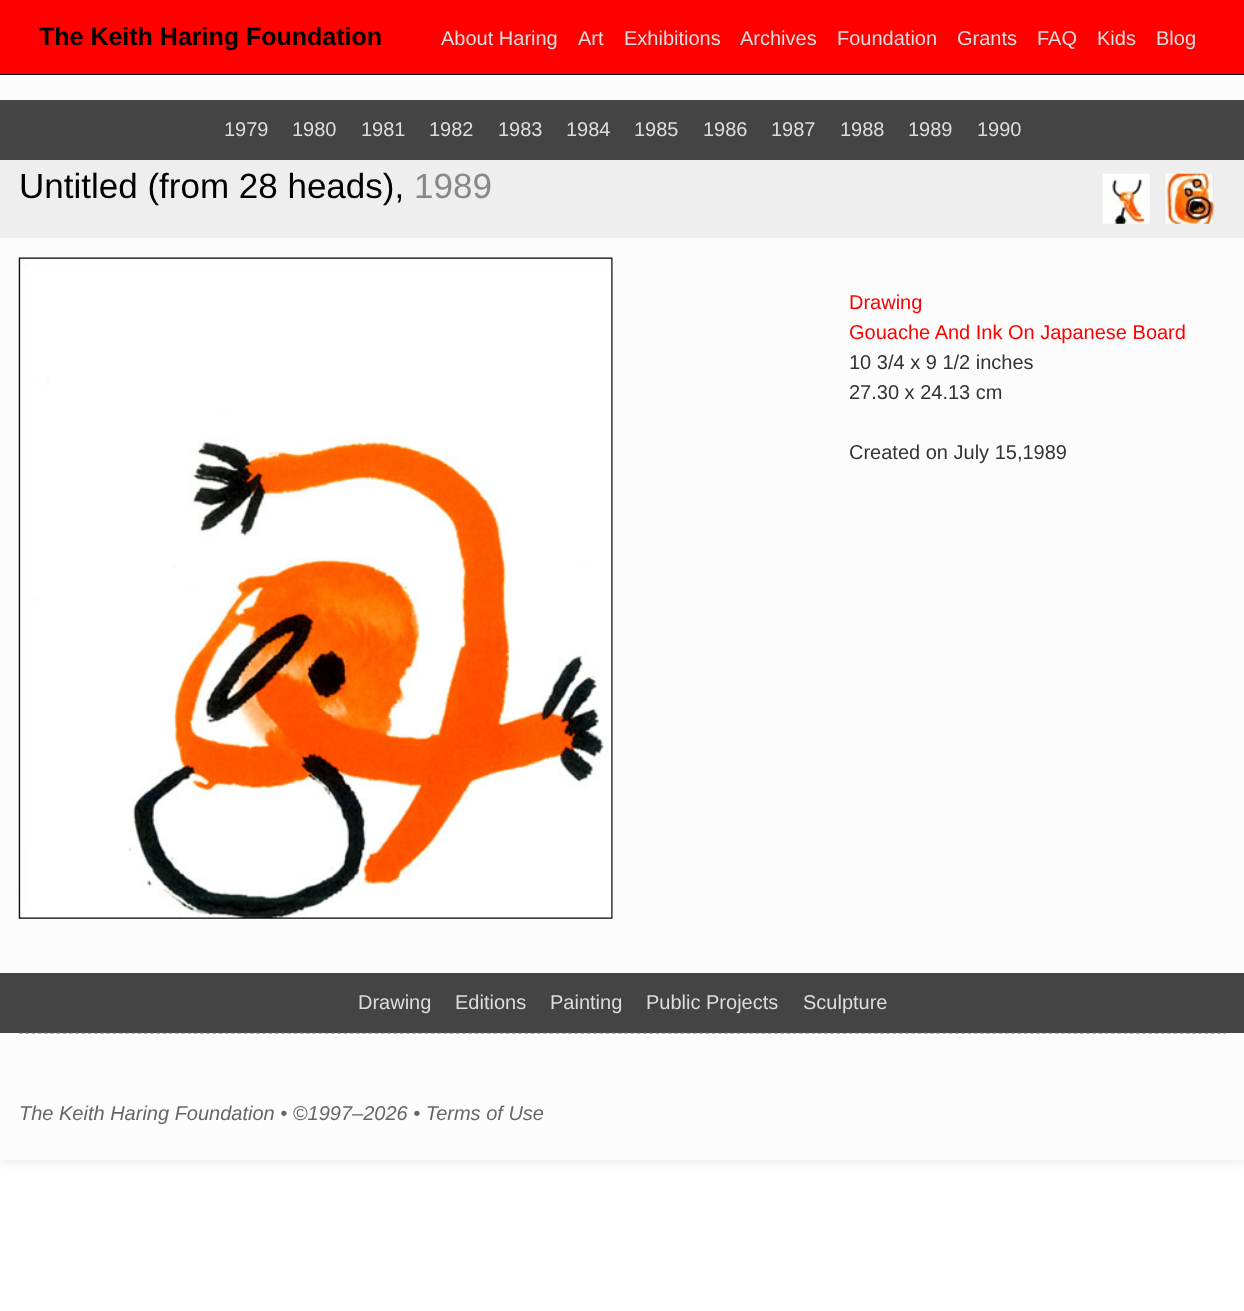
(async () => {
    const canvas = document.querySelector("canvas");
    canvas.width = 1244;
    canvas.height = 1311;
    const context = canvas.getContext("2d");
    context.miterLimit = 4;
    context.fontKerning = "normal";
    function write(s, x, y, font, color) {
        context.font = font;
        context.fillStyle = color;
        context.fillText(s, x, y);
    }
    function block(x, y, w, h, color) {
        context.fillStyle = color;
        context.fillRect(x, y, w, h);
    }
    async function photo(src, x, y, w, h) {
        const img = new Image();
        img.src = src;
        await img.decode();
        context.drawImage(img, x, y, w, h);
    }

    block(0, 0, 1244, 1311, "rgb(255, 255, 255)");
    context.fillStyle = "rgba(0, 0, 0, 0.1)";
    context.filter = "blur(5.5px)";
    context.beginPath();
    context.rect(1, 1, 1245, 1160);
    context.fill();
    context.filter = "none";
    block(0, 0, 1244, 74, "rgb(255, 0, 0)");
    block(0, 74, 1244, 1, "rgb(0, 0, 0)");
    write("The Keith Haring Foundation", 39, 45, "bold 25px Liberation Sans", "rgb(0, 0, 0)");
    write("About Haring", 441, 45, "20px Liberation Sans", "rgb(221, 221, 221)");
    write("Art", 578, 45, "20px Liberation Sans", "rgb(221, 221, 221)");
    write("Exhibitions", 624, 45, "20px Liberation Sans", "rgb(221, 221, 221)");
    write("Archives", 740, 45, "20px Liberation Sans", "rgb(221, 221, 221)");
    write("Foundation", 837, 45, "20px Liberation Sans", "rgb(221, 221, 221)");
    write("Grants", 957, 45, "20px Liberation Sans", "rgb(221, 221, 221)");
    write("FAQ", 1037, 45, "20px Liberation Sans", "rgb(221, 221, 221)");
    write("Kids", 1097, 45, "20px Liberation Sans", "rgb(221, 221, 221)");
    write("Blog", 1156, 45, "20px Liberation Sans", "rgb(221, 221, 221)");
    block(0, 75, 1244, 1085, "rgb(252, 252, 252)");
    block(0, 100, 1244, 60, "rgb(68, 68, 68)");
    write("1979", 224, 136, "20px Liberation Sans", "rgb(221, 221, 221)");
    write("1980", 292, 136, "20px Liberation Sans", "rgb(221, 221, 221)");
    write("1981", 361, 136, "20px Liberation Sans", "rgb(221, 221, 221)");
    write("1982", 429, 136, "20px Liberation Sans", "rgb(221, 221, 221)");
    write("1983", 498, 136, "20px Liberation Sans", "rgb(221, 221, 221)");
    write("1984", 566, 136, "20px Liberation Sans", "rgb(221, 221, 221)");
    write("1985", 634, 136, "20px Liberation Sans", "rgb(221, 221, 221)");
    write("1986", 703, 136, "20px Liberation Sans", "rgb(221, 221, 221)");
    write("1987", 771, 136, "20px Liberation Sans", "rgb(221, 221, 221)");
    write("1988", 840, 136, "20px Liberation Sans", "rgb(221, 221, 221)");
    write("1989", 908, 136, "20px Liberation Sans", "rgb(221, 221, 221)");
    write("1990", 977, 136, "20px Liberation Sans", "rgb(221, 221, 221)");
    block(0, 160, 1244, 78, "rgb(238, 238, 238)");
    write("Untitled (from 28 heads),", 19, 198, "35px Liberation Sans", "rgb(0, 0, 0)");
    write("1989", 414, 198, "35px Liberation Sans", "rgb(136, 136, 136)");
    await photo("media/1.png", 1101, 173, 50, 51);
    await photo("media/2.png", 1163, 173, 51, 51);
    await photo("media/3.png", 18, 257, 595, 662);
    write("Drawing", 849, 309, "20px Liberation Sans", "rgb(255, 0, 0)");
    write("Gouache And Ink On Japanese Board", 849, 339, "20px Liberation Sans", "rgb(255, 0, 0)");
    write("10 3/4 x 9 1/2 inches", 849, 369, "20px Liberation Sans", "rgb(51, 51, 51)");
    write("27.30 x 24.13 cm", 849, 399, "20px Liberation Sans", "rgb(51, 51, 51)");
    write("Created on July 15,1989", 849, 459, "20px Liberation Sans", "rgb(51, 51, 51)");
    block(0, 973, 1244, 60, "rgb(68, 68, 68)");
    write("Drawing", 358, 1009, "20px Liberation Sans", "rgb(221, 221, 221)");
    write("Editions", 455, 1009, "20px Liberation Sans", "rgb(221, 221, 221)");
    write("Painting", 550, 1009, "20px Liberation Sans", "rgb(221, 221, 221)");
    write("Public Projects", 646, 1009, "20px Liberation Sans", "rgb(221, 221, 221)");
    write("Sculpture", 803, 1009, "20px Liberation Sans", "rgb(221, 221, 221)");
    context.beginPath();
    context.moveTo(19, 1033);
    context.lineTo(1226, 1033);
    context.strokeStyle = "rgb(102, 102, 102)";
    context.lineWidth = 1.2;
    context.setLineDash([3.75, 2.49]);
    context.stroke();
    write("The Keith Haring Foundation • ©1997–2026 • Terms of Use", 19, 1120, "italic 20px Liberation Sans", "rgb(102, 102, 102)");
})();
